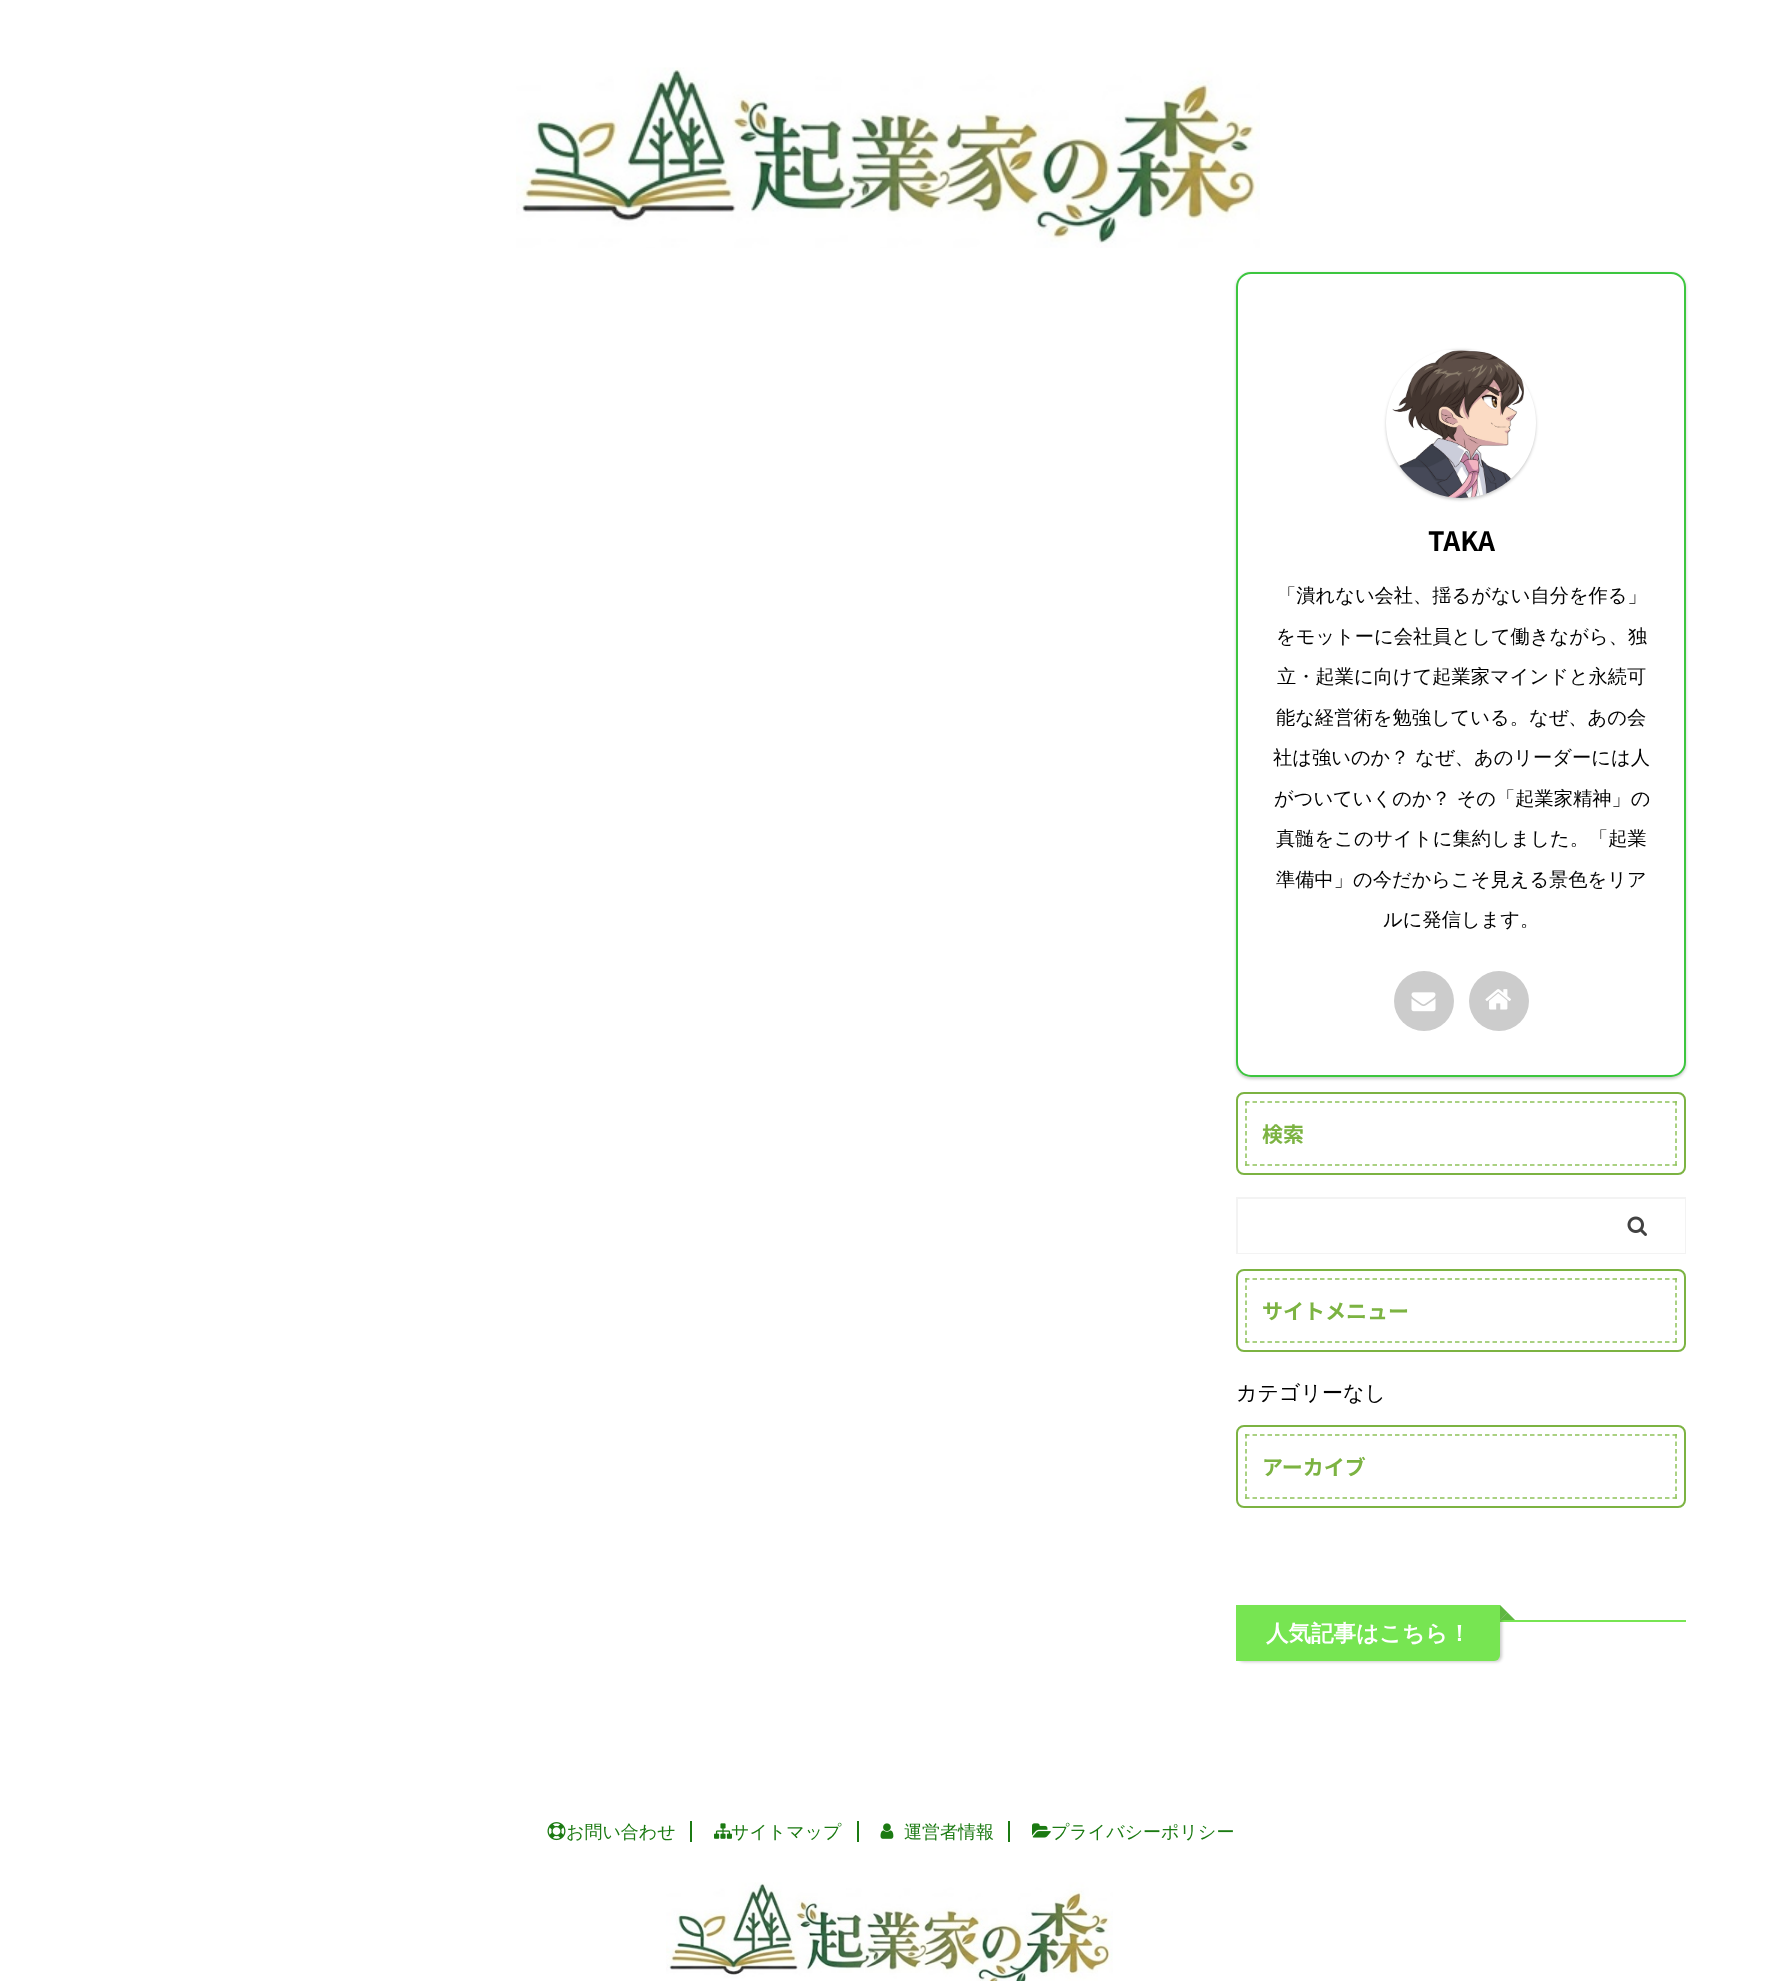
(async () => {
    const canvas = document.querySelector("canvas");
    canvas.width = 1782;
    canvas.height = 1981;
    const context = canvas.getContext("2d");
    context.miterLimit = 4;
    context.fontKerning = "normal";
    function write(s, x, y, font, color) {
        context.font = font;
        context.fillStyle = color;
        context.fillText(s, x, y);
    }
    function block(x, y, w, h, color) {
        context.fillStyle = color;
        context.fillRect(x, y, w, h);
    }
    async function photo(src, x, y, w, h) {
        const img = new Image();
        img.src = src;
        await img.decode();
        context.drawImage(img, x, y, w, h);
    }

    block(0, 0, 1782, 1981, "rgb(255, 255, 255)");
    await photo("media/1.png", 516, 67, 744, 181);
    context.fillStyle = "rgba(0, 0, 0, 0.2)";
    context.filter = "blur(1.5px)";
    context.beginPath();
    context.roundRect(1236, 273, 450, 806, 15);
    context.fill();
    context.filter = "none";
    context.fillStyle = "rgb(255, 255, 255)";
    context.beginPath();
    context.roundRect(1237, 273, 448, 803, 14);
    context.fill();
    context.strokeStyle = "rgb(61, 198, 63)";
    context.lineWidth = 2;
    context.stroke();
    context.fillStyle = "rgba(0, 0, 0, 0.2)";
    context.filter = "blur(1.5px)";
    context.beginPath();
    context.roundRect(1386, 350, 150, 150, 75);
    context.fill();
    context.filter = "none";
    await photo("media/2.png", 1386, 350, 150, 148);
    write("TAKA", 1428, 551, "bold 26.5px Noto Sans JP", "rgb(0, 0, 0)");
    write("「潰れない会社、揺るがない自分を作る」", 1277, 602, "500 19.25px WenQuanYi Zen Hei", "rgb(0, 0, 0)");
    write("をモットーに会社員として働きながら、独", 1276, 643, "500 19.25px WenQuanYi Zen Hei", "rgb(0, 0, 0)");
    write("立・起業に向けて起業家マインドと永続可", 1277, 683, "500 19.25px WenQuanYi Zen Hei", "rgb(0, 0, 0)");
    write("能な経営術を勉強している。なぜ、あの会", 1276, 724, "500 19.25px WenQuanYi Zen Hei", "rgb(0, 0, 0)");
    write("社は強いのか？ なぜ、あのリーダーには人", 1273, 764, "500 19.25px WenQuanYi Zen Hei", "rgb(0, 0, 0)");
    write("がついていくのか？ その「起業家精神」の", 1274, 805, "500 19.25px WenQuanYi Zen Hei", "rgb(0, 0, 0)");
    write("真髄をこのサイトに集約しました。「起業", 1276, 845, "500 19.25px WenQuanYi Zen Hei", "rgb(0, 0, 0)");
    write("準備中」の今だからこそ見える景色をリア", 1276, 886, "500 19.25px WenQuanYi Zen Hei", "rgb(0, 0, 0)");
    write("ルに発信します。", 1383, 926, "500 19.25px WenQuanYi Zen Hei", "rgb(0, 0, 0)");
    context.fillStyle = "rgb(204, 204, 204)";
    context.beginPath();
    context.arc(1424, 1001, 30, 0, Math.PI * 2);
    context.fill();
    await photo("media/3.png", 1411, 992, 25, 20);
    context.beginPath();
    context.arc(1499, 1001, 30, 0, Math.PI * 2);
    context.fill();
    await photo("media/4.png", 1485, 989, 26, 21);
    context.beginPath();
    context.roundRect(1237, 1093, 448, 81, 7);
    context.strokeStyle = "rgb(124, 179, 66)";
    context.stroke();
    context.beginPath();
    context.moveTo(1245, 1102);
    context.lineTo(1677, 1102);
    context.strokeStyle = "rgb(143, 194, 90)";
    context.lineWidth = 1.5;
    context.setLineDash([4.5, 3]);
    context.stroke();
    context.beginPath();
    context.moveTo(1676, 1101);
    context.lineTo(1676, 1165.5);
    context.stroke();
    context.beginPath();
    context.moveTo(1245, 1165);
    context.lineTo(1677, 1165);
    context.stroke();
    context.beginPath();
    context.moveTo(1246, 1101);
    context.lineTo(1246, 1165.5);
    context.stroke();
    write("検索", 1262, 1142, "bold 21px Noto Sans JP", "rgb(124, 179, 66)");
    context.strokeStyle = "rgb(243, 243, 243)";
    context.lineWidth = 2;
    context.setLineDash([]);
    context.strokeRect(1237, 1198, 448, 55);
    block(1238, 1252, 352, 1, "rgb(255, 255, 255)");
    block(1590, 1199, 95, 54, "rgb(255, 255, 255)");
    await photo("media/5.png", 1627, 1216, 20, 20);
    context.beginPath();
    context.roundRect(1237, 1270, 448, 81, 7);
    context.strokeStyle = "rgb(124, 179, 66)";
    context.stroke();
    context.beginPath();
    context.moveTo(1245, 1279);
    context.lineTo(1677, 1279);
    context.strokeStyle = "rgb(143, 194, 90)";
    context.lineWidth = 1.5;
    context.setLineDash([4.5, 3]);
    context.stroke();
    context.beginPath();
    context.moveTo(1676, 1278);
    context.lineTo(1676, 1342.5);
    context.stroke();
    context.beginPath();
    context.moveTo(1245, 1342);
    context.lineTo(1677, 1342);
    context.stroke();
    context.beginPath();
    context.moveTo(1246, 1278);
    context.lineTo(1246, 1342.5);
    context.stroke();
    write("サイトメニュー", 1262, 1319, "bold 21px Noto Sans JP", "rgb(124, 179, 66)");
    write("カテゴリーなし", 1236, 1400, "500 21px WenQuanYi Zen Hei", "rgb(0, 0, 0)");
    context.beginPath();
    context.roundRect(1237, 1426, 448, 81, 7);
    context.strokeStyle = "rgb(124, 179, 66)";
    context.lineWidth = 2;
    context.setLineDash([]);
    context.stroke();
    context.beginPath();
    context.moveTo(1245, 1435);
    context.lineTo(1677, 1435);
    context.strokeStyle = "rgb(143, 194, 90)";
    context.lineWidth = 1.5;
    context.setLineDash([4.5, 3]);
    context.stroke();
    context.beginPath();
    context.moveTo(1676, 1434);
    context.lineTo(1676, 1498.5);
    context.stroke();
    context.beginPath();
    context.moveTo(1245, 1498);
    context.lineTo(1677, 1498);
    context.stroke();
    context.beginPath();
    context.moveTo(1246, 1434);
    context.lineTo(1246, 1498.5);
    context.stroke();
    write("アーカイブ", 1262, 1475, "bold 21px Noto Sans JP", "rgb(124, 179, 66)");
    block(1500, 1620, 186, 2, "rgb(119, 229, 82)");
    context.fillStyle = "rgba(0, 0, 0, 0.2)";
    context.filter = "blur(1.5px)";
    context.beginPath();
    context.roundRect(1238, 1607, 264, 55, 6);
    context.fill();
    context.filter = "none";
    context.fillStyle = "rgb(119, 229, 82)";
    context.beginPath();
    context.roundRect(1236, 1605, 264, 56, [0, 0, 6, 0]);
    context.fill();
    context.beginPath();
    context.moveTo(1515, 1620);
    context.lineTo(1500, 1620);
    context.lineTo(1507.5, 1612.5);
    context.closePath();
    context.fill();
    context.beginPath();
    context.moveTo(1500, 1620);
    context.lineTo(1500, 1605);
    context.lineTo(1507.5, 1612.5);
    context.closePath();
    context.fill();
    context.fillStyle = "rgba(0, 0, 0, 0.2)";
    context.beginPath();
    context.moveTo(1515, 1620);
    context.lineTo(1500, 1620);
    context.lineTo(1507.5, 1612.5);
    context.closePath();
    context.fill();
    context.beginPath();
    context.moveTo(1500, 1620);
    context.lineTo(1500, 1605);
    context.lineTo(1507.5, 1612.5);
    context.closePath();
    context.fill();
    write("人気記事はこちら！", 1266, 1641, "bold 22.5px WenQuanYi Zen Hei", "rgb(255, 255, 255)");
    block(690, 1821, 2, 21, "rgb(27, 122, 18)");
    await photo("media/6.png", 547, 1822, 19, 19);
    write("お問い合わせ", 566, 1838, "500 18px WenQuanYi Zen Hei", "rgb(27, 122, 18)");
    block(857, 1821, 2, 21, "rgb(27, 122, 18)");
    await photo("media/7.png", 714, 1823, 18, 16);
    write("サイトマップ", 731, 1838, "500 18px WenQuanYi Zen Hei", "rgb(27, 122, 18)");
    block(1008, 1821, 2, 21, "rgb(27, 122, 18)");
    await photo("media/8.png", 880, 1823, 14, 16);
    write("運営者情報", 904, 1838, "500 18px WenQuanYi Zen Hei", "rgb(27, 122, 18)");
    await photo("media/9.png", 1032, 1823, 19, 15);
    write("プライバシーポリシー", 1051, 1838, "500 18px WenQuanYi Zen Hei", "rgb(27, 122, 18)");
    await photo("media/10.png", 666, 1882, 447, 99);
})();
